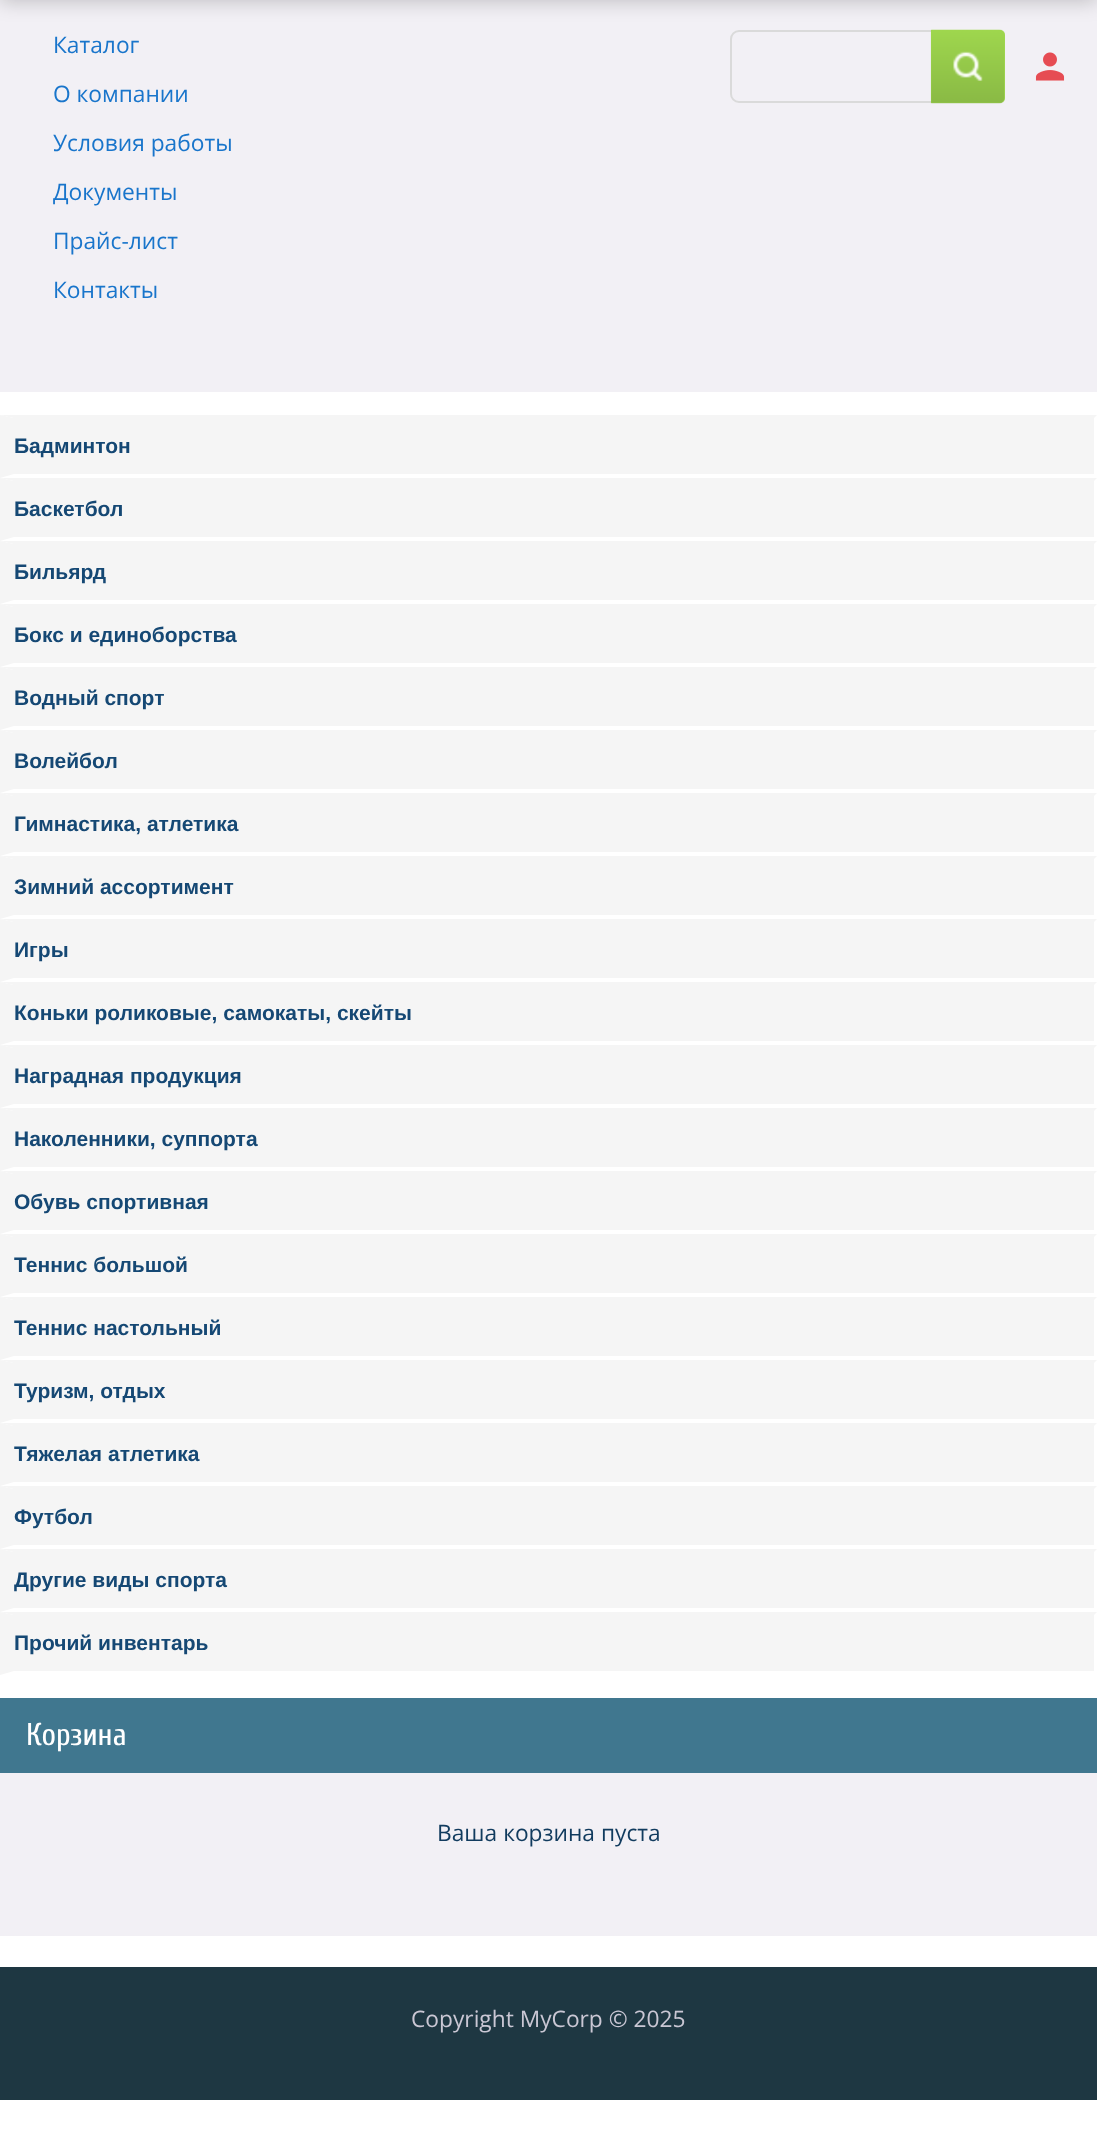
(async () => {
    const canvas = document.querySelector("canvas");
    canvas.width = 1097;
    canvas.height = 2131;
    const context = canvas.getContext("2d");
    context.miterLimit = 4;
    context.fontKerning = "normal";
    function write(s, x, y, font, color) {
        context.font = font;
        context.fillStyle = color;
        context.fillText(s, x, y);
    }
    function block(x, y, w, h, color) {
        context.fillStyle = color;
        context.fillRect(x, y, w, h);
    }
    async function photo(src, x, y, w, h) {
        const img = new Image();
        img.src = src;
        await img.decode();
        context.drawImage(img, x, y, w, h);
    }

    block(0, 0, 1097, 2131, "rgb(255, 255, 255)");
    block(0, 0, 1097, 392, "rgb(242, 240, 245)");
    context.fillStyle = "rgba(0, 0, 0, 0.2)";
    context.filter = "blur(9.5px)";
    context.beginPath();
    context.rect(0, -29, 1097, 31);
    context.fill();
    context.filter = "none";
    context.beginPath();
    context.roundRect(731, 31, 273, 71, 8);
    context.strokeStyle = "rgb(218, 218, 218)";
    context.lineWidth = 2;
    context.stroke();
    context.fillStyle = "rgb(159, 215, 78)";
    context.beginPath();
    context.roundRect(931, 30, 74, 73, [0, 5, 5, 0]);
    context.fill();
    await photo("media/1.png", 930, 29, 75, 75);
    await photo("media/2.png", 1035, 52, 30, 29);
    write("Каталог", 53, 53, "22.75px Open Sans", "rgb(25, 117, 203)");
    write("О компании", 53, 102, "22.75px Open Sans", "rgb(25, 117, 203)");
    write("Условия работы", 53, 151, "22.75px Open Sans", "rgb(25, 117, 203)");
    write("Документы", 53, 200, "22.75px Open Sans", "rgb(25, 117, 203)");
    write("Прайс-лист", 53, 249, "22.75px Open Sans", "rgb(25, 117, 203)");
    write("Контакты", 53, 298, "22.75px Open Sans", "rgb(25, 117, 203)");
    block(14, 418, 1080, 56, "rgb(245, 245, 245)");
    context.beginPath();
    context.moveTo(0, 415);
    context.lineTo(1097, 415);
    context.lineTo(1094, 418);
    context.lineTo(14, 418);
    context.closePath();
    context.fill();
    context.beginPath();
    context.moveTo(0, 478);
    context.lineTo(0, 415);
    context.lineTo(14, 418);
    context.lineTo(14, 474);
    context.closePath();
    context.fill();
    write("Бадминтон", 14, 453, "bold 21px Liberation Sans", "rgb(21, 72, 116)");
    block(14, 481, 1080, 56, "rgb(245, 245, 245)");
    context.beginPath();
    context.moveTo(0, 478);
    context.lineTo(1097, 478);
    context.lineTo(1094, 481);
    context.lineTo(14, 481);
    context.closePath();
    context.fill();
    context.beginPath();
    context.moveTo(0, 541);
    context.lineTo(0, 478);
    context.lineTo(14, 481);
    context.lineTo(14, 537);
    context.closePath();
    context.fill();
    write("Баскетбол", 14, 516, "bold 21px Liberation Sans", "rgb(21, 72, 116)");
    block(14, 544, 1080, 56, "rgb(245, 245, 245)");
    context.beginPath();
    context.moveTo(0, 541);
    context.lineTo(1097, 541);
    context.lineTo(1094, 544);
    context.lineTo(14, 544);
    context.closePath();
    context.fill();
    context.beginPath();
    context.moveTo(0, 604);
    context.lineTo(0, 541);
    context.lineTo(14, 544);
    context.lineTo(14, 600);
    context.closePath();
    context.fill();
    write("Бильярд", 14, 579, "bold 21px Liberation Sans", "rgb(21, 72, 116)");
    block(14, 607, 1080, 56, "rgb(245, 245, 245)");
    context.beginPath();
    context.moveTo(0, 604);
    context.lineTo(1097, 604);
    context.lineTo(1094, 607);
    context.lineTo(14, 607);
    context.closePath();
    context.fill();
    context.beginPath();
    context.moveTo(0, 667);
    context.lineTo(0, 604);
    context.lineTo(14, 607);
    context.lineTo(14, 663);
    context.closePath();
    context.fill();
    write("Бокс и единоборства", 14, 642, "bold 21px Liberation Sans", "rgb(21, 72, 116)");
    block(14, 670, 1080, 56, "rgb(245, 245, 245)");
    context.beginPath();
    context.moveTo(0, 667);
    context.lineTo(1097, 667);
    context.lineTo(1094, 670);
    context.lineTo(14, 670);
    context.closePath();
    context.fill();
    context.beginPath();
    context.moveTo(0, 730);
    context.lineTo(0, 667);
    context.lineTo(14, 670);
    context.lineTo(14, 726);
    context.closePath();
    context.fill();
    write("Водный спорт", 14, 705, "bold 21px Liberation Sans", "rgb(21, 72, 116)");
    block(14, 733, 1080, 56, "rgb(245, 245, 245)");
    context.beginPath();
    context.moveTo(0, 730);
    context.lineTo(1097, 730);
    context.lineTo(1094, 733);
    context.lineTo(14, 733);
    context.closePath();
    context.fill();
    context.beginPath();
    context.moveTo(0, 793);
    context.lineTo(0, 730);
    context.lineTo(14, 733);
    context.lineTo(14, 789);
    context.closePath();
    context.fill();
    write("Волейбол", 14, 768, "bold 21px Liberation Sans", "rgb(21, 72, 116)");
    block(14, 796, 1080, 56, "rgb(245, 245, 245)");
    context.beginPath();
    context.moveTo(0, 793);
    context.lineTo(1097, 793);
    context.lineTo(1094, 796);
    context.lineTo(14, 796);
    context.closePath();
    context.fill();
    context.beginPath();
    context.moveTo(0, 856);
    context.lineTo(0, 793);
    context.lineTo(14, 796);
    context.lineTo(14, 852);
    context.closePath();
    context.fill();
    write("Гимнастика, атлетика", 14, 831, "bold 21px Liberation Sans", "rgb(21, 72, 116)");
    block(14, 859, 1080, 56, "rgb(245, 245, 245)");
    context.beginPath();
    context.moveTo(0, 856);
    context.lineTo(1097, 856);
    context.lineTo(1094, 859);
    context.lineTo(14, 859);
    context.closePath();
    context.fill();
    context.beginPath();
    context.moveTo(0, 919);
    context.lineTo(0, 856);
    context.lineTo(14, 859);
    context.lineTo(14, 915);
    context.closePath();
    context.fill();
    write("Зимний ассортимент", 14, 894, "bold 21px Liberation Sans", "rgb(21, 72, 116)");
    block(14, 922, 1080, 56, "rgb(245, 245, 245)");
    context.beginPath();
    context.moveTo(0, 919);
    context.lineTo(1097, 919);
    context.lineTo(1094, 922);
    context.lineTo(14, 922);
    context.closePath();
    context.fill();
    context.beginPath();
    context.moveTo(0, 982);
    context.lineTo(0, 919);
    context.lineTo(14, 922);
    context.lineTo(14, 978);
    context.closePath();
    context.fill();
    write("Игры", 14, 957, "bold 21px Liberation Sans", "rgb(21, 72, 116)");
    block(14, 985, 1080, 56, "rgb(245, 245, 245)");
    context.beginPath();
    context.moveTo(0, 982);
    context.lineTo(1097, 982);
    context.lineTo(1094, 985);
    context.lineTo(14, 985);
    context.closePath();
    context.fill();
    context.beginPath();
    context.moveTo(0, 1045);
    context.lineTo(0, 982);
    context.lineTo(14, 985);
    context.lineTo(14, 1041);
    context.closePath();
    context.fill();
    write("Коньки роликовые, самокаты, скейты", 14, 1020, "bold 21px Liberation Sans", "rgb(21, 72, 116)");
    block(14, 1048, 1080, 56, "rgb(245, 245, 245)");
    context.beginPath();
    context.moveTo(0, 1045);
    context.lineTo(1097, 1045);
    context.lineTo(1094, 1048);
    context.lineTo(14, 1048);
    context.closePath();
    context.fill();
    context.beginPath();
    context.moveTo(0, 1108);
    context.lineTo(0, 1045);
    context.lineTo(14, 1048);
    context.lineTo(14, 1104);
    context.closePath();
    context.fill();
    write("Наградная продукция", 14, 1083, "bold 21px Liberation Sans", "rgb(21, 72, 116)");
    block(14, 1111, 1080, 56, "rgb(245, 245, 245)");
    context.beginPath();
    context.moveTo(0, 1108);
    context.lineTo(1097, 1108);
    context.lineTo(1094, 1111);
    context.lineTo(14, 1111);
    context.closePath();
    context.fill();
    context.beginPath();
    context.moveTo(0, 1171);
    context.lineTo(0, 1108);
    context.lineTo(14, 1111);
    context.lineTo(14, 1167);
    context.closePath();
    context.fill();
    write("Наколенники, суппорта", 14, 1146, "bold 21px Liberation Sans", "rgb(21, 72, 116)");
    block(14, 1174, 1080, 56, "rgb(245, 245, 245)");
    context.beginPath();
    context.moveTo(0, 1171);
    context.lineTo(1097, 1171);
    context.lineTo(1094, 1174);
    context.lineTo(14, 1174);
    context.closePath();
    context.fill();
    context.beginPath();
    context.moveTo(0, 1234);
    context.lineTo(0, 1171);
    context.lineTo(14, 1174);
    context.lineTo(14, 1230);
    context.closePath();
    context.fill();
    write("Обувь спортивная", 14, 1209, "bold 21px Liberation Sans", "rgb(21, 72, 116)");
    block(14, 1237, 1080, 56, "rgb(245, 245, 245)");
    context.beginPath();
    context.moveTo(0, 1234);
    context.lineTo(1097, 1234);
    context.lineTo(1094, 1237);
    context.lineTo(14, 1237);
    context.closePath();
    context.fill();
    context.beginPath();
    context.moveTo(0, 1297);
    context.lineTo(0, 1234);
    context.lineTo(14, 1237);
    context.lineTo(14, 1293);
    context.closePath();
    context.fill();
    write("Теннис большой", 14, 1272, "bold 21px Liberation Sans", "rgb(21, 72, 116)");
    block(14, 1300, 1080, 56, "rgb(245, 245, 245)");
    context.beginPath();
    context.moveTo(0, 1297);
    context.lineTo(1097, 1297);
    context.lineTo(1094, 1300);
    context.lineTo(14, 1300);
    context.closePath();
    context.fill();
    context.beginPath();
    context.moveTo(0, 1360);
    context.lineTo(0, 1297);
    context.lineTo(14, 1300);
    context.lineTo(14, 1356);
    context.closePath();
    context.fill();
    write("Теннис настольный", 14, 1335, "bold 21px Liberation Sans", "rgb(21, 72, 116)");
    block(14, 1363, 1080, 56, "rgb(245, 245, 245)");
    context.beginPath();
    context.moveTo(0, 1360);
    context.lineTo(1097, 1360);
    context.lineTo(1094, 1363);
    context.lineTo(14, 1363);
    context.closePath();
    context.fill();
    context.beginPath();
    context.moveTo(0, 1423);
    context.lineTo(0, 1360);
    context.lineTo(14, 1363);
    context.lineTo(14, 1419);
    context.closePath();
    context.fill();
    write("Туризм, отдых", 14, 1398, "bold 21px Liberation Sans", "rgb(21, 72, 116)");
    block(14, 1426, 1080, 56, "rgb(245, 245, 245)");
    context.beginPath();
    context.moveTo(0, 1423);
    context.lineTo(1097, 1423);
    context.lineTo(1094, 1426);
    context.lineTo(14, 1426);
    context.closePath();
    context.fill();
    context.beginPath();
    context.moveTo(0, 1486);
    context.lineTo(0, 1423);
    context.lineTo(14, 1426);
    context.lineTo(14, 1482);
    context.closePath();
    context.fill();
    write("Тяжелая атлетика", 14, 1461, "bold 21px Liberation Sans", "rgb(21, 72, 116)");
    block(14, 1489, 1080, 56, "rgb(245, 245, 245)");
    context.beginPath();
    context.moveTo(0, 1486);
    context.lineTo(1097, 1486);
    context.lineTo(1094, 1489);
    context.lineTo(14, 1489);
    context.closePath();
    context.fill();
    context.beginPath();
    context.moveTo(0, 1549);
    context.lineTo(0, 1486);
    context.lineTo(14, 1489);
    context.lineTo(14, 1545);
    context.closePath();
    context.fill();
    write("Футбол", 14, 1524, "bold 21px Liberation Sans", "rgb(21, 72, 116)");
    block(14, 1552, 1080, 56, "rgb(245, 245, 245)");
    context.beginPath();
    context.moveTo(0, 1549);
    context.lineTo(1097, 1549);
    context.lineTo(1094, 1552);
    context.lineTo(14, 1552);
    context.closePath();
    context.fill();
    context.beginPath();
    context.moveTo(0, 1612);
    context.lineTo(0, 1549);
    context.lineTo(14, 1552);
    context.lineTo(14, 1608);
    context.closePath();
    context.fill();
    write("Другие виды спорта", 14, 1587, "bold 21px Liberation Sans", "rgb(21, 72, 116)");
    block(14, 1615, 1080, 56, "rgb(245, 245, 245)");
    context.beginPath();
    context.moveTo(0, 1612);
    context.lineTo(1097, 1612);
    context.lineTo(1094, 1615);
    context.lineTo(14, 1615);
    context.closePath();
    context.fill();
    context.beginPath();
    context.moveTo(0, 1675);
    context.lineTo(0, 1612);
    context.lineTo(14, 1615);
    context.lineTo(14, 1671);
    context.closePath();
    context.fill();
    write("Прочий инвентарь", 14, 1650, "bold 21px Liberation Sans", "rgb(21, 72, 116)");
    block(0, 1773, 1097, 163, "rgb(242, 240, 245)");
    block(0, 1698, 1097, 75, "rgb(64, 119, 143)");
    write("Корзина", 26, 1745, "31.5px Cuprum", "rgb(255, 255, 255)");
    write("Ваша корзина пуста", 437, 1841, "22.75px Open Sans", "rgb(17, 59, 94)");
    block(0, 1967, 1097, 133, "rgb(30, 55, 66)");
    write("Copyright MyCorp © 2025", 411, 2027, "22.75px Open Sans", "rgb(202, 199, 212)");
})();
